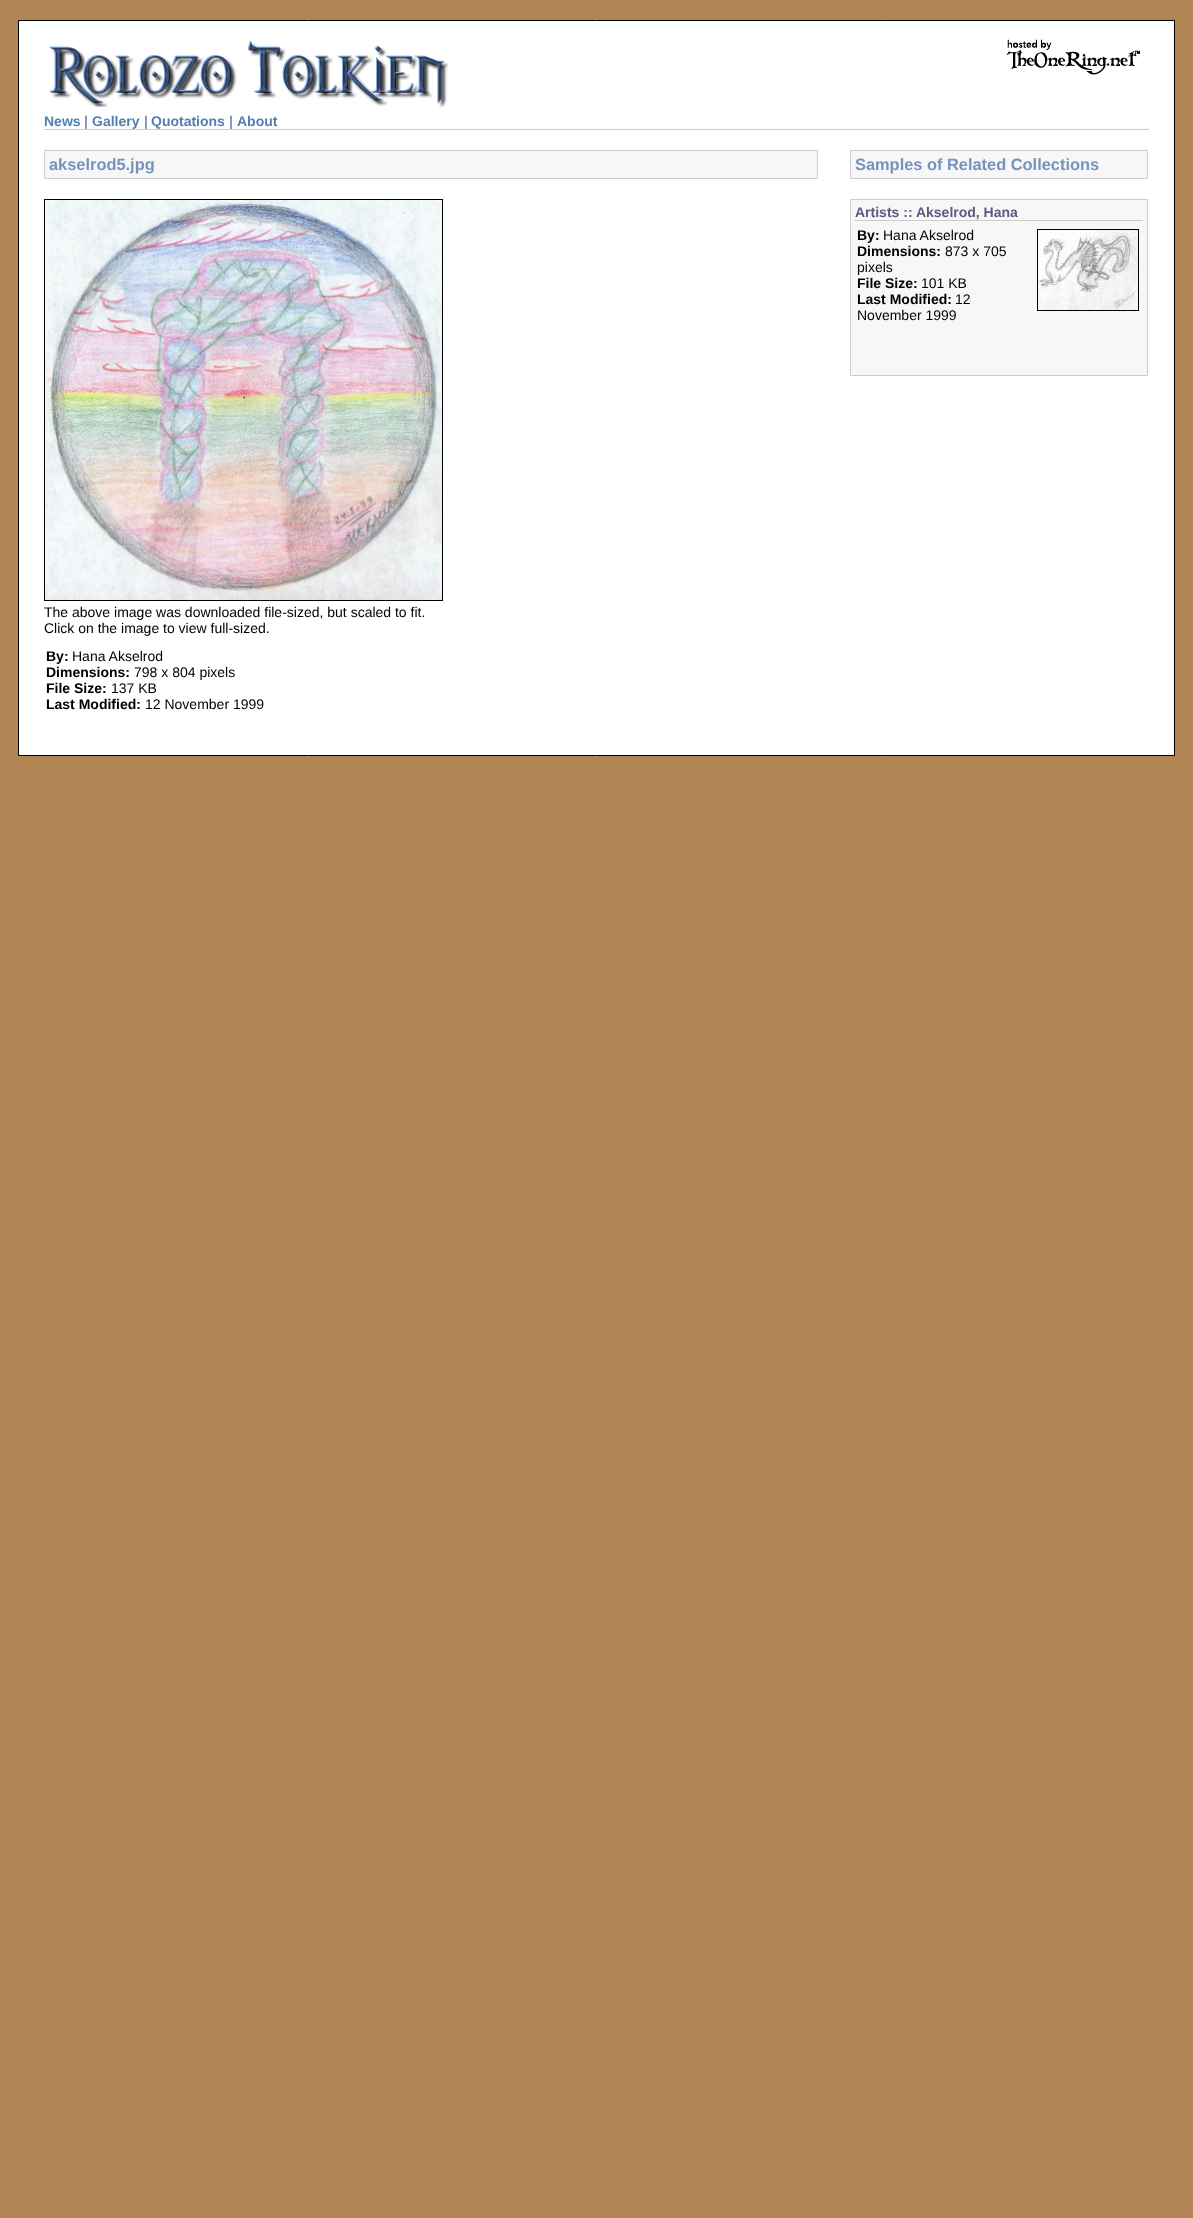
(async () => {
    const canvas = document.querySelector("canvas");
    canvas.width = 1193;
    canvas.height = 2218;
    const context = canvas.getContext("2d");
    context.miterLimit = 4;
    context.fontKerning = "normal";
    function write(s, x, y, font, color) {
        context.font = font;
        context.fillStyle = color;
        context.fillText(s, x, y);
    }
    function block(x, y, w, h, color) {
        context.fillStyle = color;
        context.fillRect(x, y, w, h);
    }
    async function photo(src, x, y, w, h) {
        const img = new Image();
        img.src = src;
        await img.decode();
        context.drawImage(img, x, y, w, h);
    }

    block(0, 0, 1193, 2218, "rgb(176, 133, 83)");
    context.fillStyle = "rgb(255, 255, 255)";
    context.beginPath();
    context.rect(18.5, 20.5, 1156, 735);
    context.fill();
    context.strokeStyle = "rgb(0, 0, 0)";
    context.stroke();
    await photo("media/1.png", 49, 40, 399, 67);
    await photo("media/2.png", 1006, 39, 134, 36);
    block(44, 129, 1105, 1, "rgb(204, 204, 204)");
    write("News", 44, 126, "bold 14px Liberation Sans", "rgb(83, 126, 176)");
    write("|", 84, 126, "bold 14px Liberation Sans", "rgb(119, 146, 188)");
    write("Gallery", 92, 126, "bold 14px Liberation Sans", "rgb(83, 126, 176)");
    write("|", 144, 126, "bold 14px Liberation Sans", "rgb(119, 146, 188)");
    write("Quotations", 151, 126, "bold 14px Liberation Sans", "rgb(83, 126, 176)");
    write("|", 229, 126, "bold 14px Liberation Sans", "rgb(119, 146, 188)");
    write("About", 237, 126, "bold 14px Liberation Sans", "rgb(83, 126, 176)");
    context.fillStyle = "rgb(247, 247, 247)";
    context.beginPath();
    context.rect(44.5, 150.5, 773, 28);
    context.fill();
    context.strokeStyle = "rgb(204, 204, 204)";
    context.stroke();
    write("akselrod5.jpg", 49, 170, "bold 16.4px Liberation Sans", "rgb(119, 146, 188)");
    context.strokeStyle = "rgb(0, 0, 0)";
    context.strokeRect(44.5, 199.5, 398, 401);
    await photo("media/3.png", 45, 200, 397, 400);
    write("The above image was downloaded file-sized, but scaled to fit.", 44, 617, "14px Liberation Sans", "rgb(0, 0, 0)");
    write("Click on the image to view full-sized.", 44, 633, "14px Liberation Sans", "rgb(0, 0, 0)");
    write("By:", 46, 661, "bold 14px Liberation Sans", "rgb(0, 0, 0)");
    write("Hana Akselrod", 72, 661, "14px Liberation Sans", "rgb(0, 0, 0)");
    write("Dimensions:", 46, 677, "bold 14px Liberation Sans", "rgb(0, 0, 0)");
    write("798 x 804 pixels", 134, 677, "14px Liberation Sans", "rgb(0, 0, 0)");
    write("File Size:", 46, 693, "bold 14px Liberation Sans", "rgb(0, 0, 0)");
    write("137 KB", 111, 693, "14px Liberation Sans", "rgb(0, 0, 0)");
    write("Last Modified:", 46, 709, "bold 14px Liberation Sans", "rgb(0, 0, 0)");
    write("12 November 1999", 145, 709, "14px Liberation Sans", "rgb(0, 0, 0)");
    context.fillStyle = "rgb(247, 247, 247)";
    context.beginPath();
    context.rect(850.5, 150.5, 297, 28);
    context.fill();
    context.strokeStyle = "rgb(204, 204, 204)";
    context.stroke();
    write("Samples of Related Collections", 855, 170, "bold 16.4px Liberation Sans", "rgb(119, 146, 188)");
    context.fillStyle = "rgb(247, 247, 247)";
    context.beginPath();
    context.rect(850.5, 199.5, 297, 176);
    context.fill();
    context.stroke();
    block(855, 220, 288, 1, "rgb(204, 204, 204)");
    write("Artists :: Akselrod, Hana", 855, 217, "bold 14px Liberation Sans", "rgb(89, 89, 131)");
    write("By:", 857, 240, "bold 14px Liberation Sans", "rgb(0, 0, 0)");
    write("Hana Akselrod", 883, 240, "14px Liberation Sans", "rgb(0, 0, 0)");
    write("Dimensions:", 857, 256, "bold 14px Liberation Sans", "rgb(0, 0, 0)");
    write("873 x 705", 945, 256, "14px Liberation Sans", "rgb(0, 0, 0)");
    write("pixels", 857, 272, "14px Liberation Sans", "rgb(0, 0, 0)");
    write("File Size:", 857, 288, "bold 14px Liberation Sans", "rgb(0, 0, 0)");
    write("101 KB", 921, 288, "14px Liberation Sans", "rgb(0, 0, 0)");
    write("Last Modified:", 857, 304, "bold 14px Liberation Sans", "rgb(0, 0, 0)");
    write("12", 955, 304, "14px Liberation Sans", "rgb(0, 0, 0)");
    write("November 1999", 857, 320, "14px Liberation Sans", "rgb(0, 0, 0)");
    context.strokeStyle = "rgb(0, 0, 0)";
    context.strokeRect(1037.5, 229.5, 101, 81);
    await photo("media/4.png", 1038, 230, 100, 80);
})();
